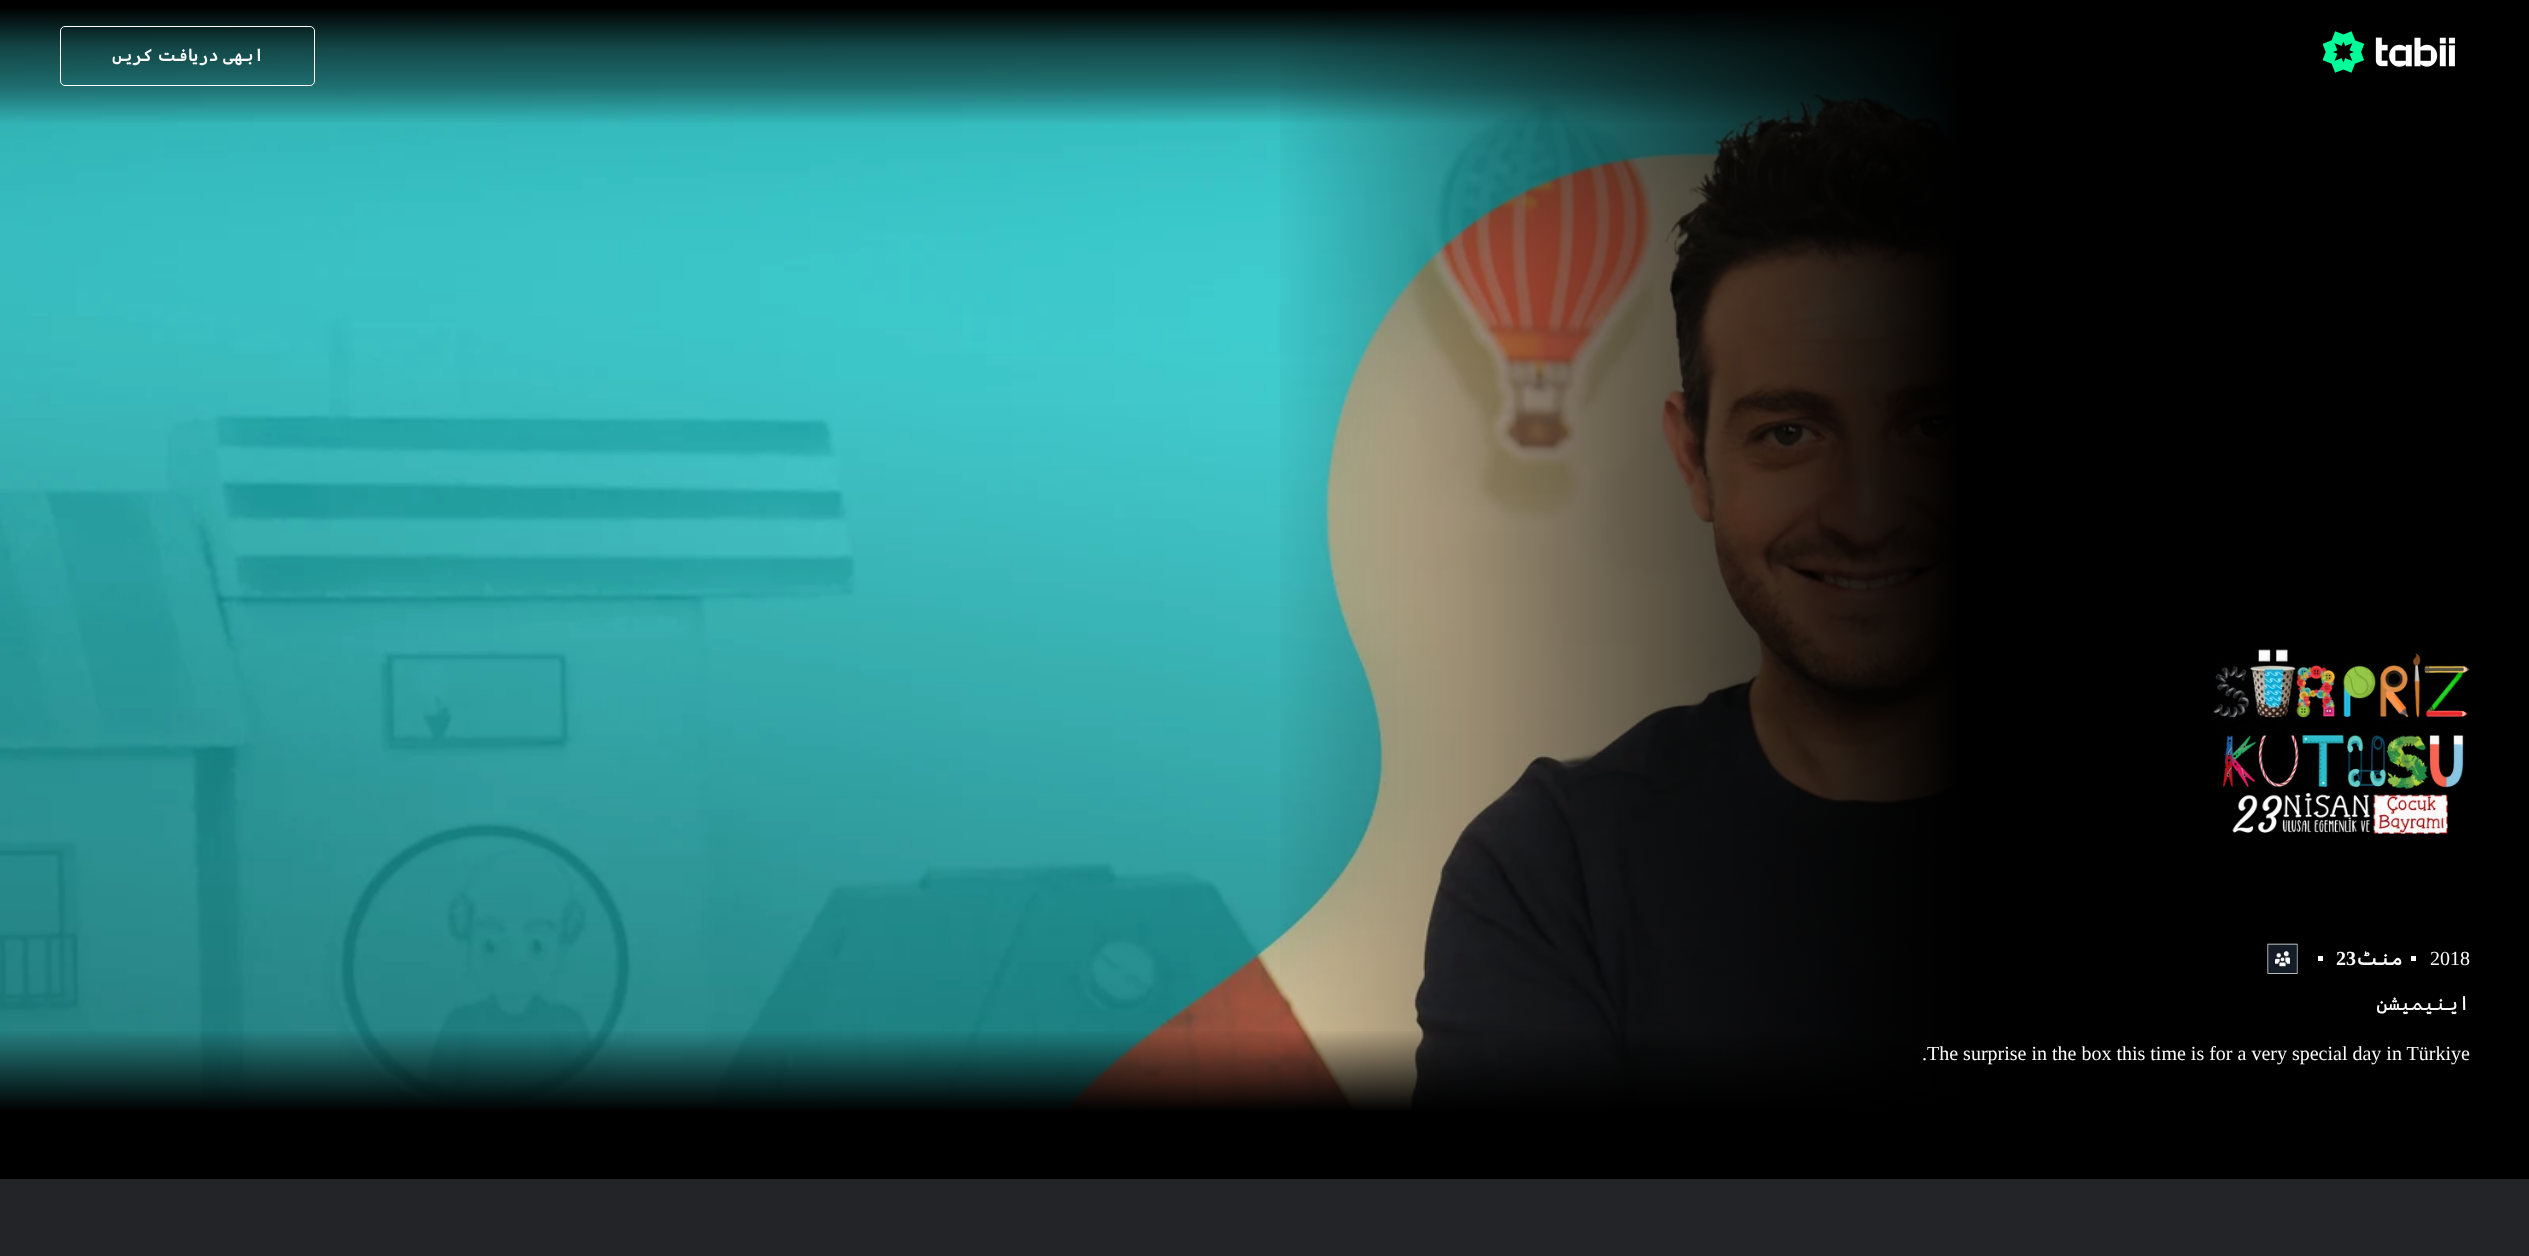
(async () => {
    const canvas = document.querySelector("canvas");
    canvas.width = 2529;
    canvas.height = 1256;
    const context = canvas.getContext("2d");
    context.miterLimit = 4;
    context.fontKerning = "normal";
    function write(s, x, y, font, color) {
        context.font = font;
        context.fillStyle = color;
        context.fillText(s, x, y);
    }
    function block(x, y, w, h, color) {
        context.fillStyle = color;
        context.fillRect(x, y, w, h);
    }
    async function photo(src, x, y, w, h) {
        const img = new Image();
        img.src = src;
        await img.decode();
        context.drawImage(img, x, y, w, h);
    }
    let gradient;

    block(0, 0, 2529, 1256, "rgb(35, 36, 40)");
    await photo("media/2.png", 0, 8, 1957, 1103);
    gradient = context.createLinearGradient(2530, 589, 1265, 589);
    gradient.addColorStop(0.1, "rgb(0, 0, 0)");
    gradient.addColorStop(0.45, "rgb(0, 0, 0)");
    gradient.addColorStop(1, "rgba(0, 0, 0, 0)");
    context.fillStyle = gradient;
    context.fillRect(1280, 8, 1249, 1103);
    gradient = context.createLinearGradient(1265, 0, 1265, 125);
    gradient.addColorStop(0.06, "rgb(0, 0, 0)");
    gradient.addColorStop(0.38, "rgba(0, 0, 0, 0.59)");
    gradient.addColorStop(0.69, "rgba(0, 0, 0, 0.38)");
    gradient.addColorStop(1, "rgba(0, 0, 0, 0)");
    context.fillStyle = gradient;
    context.fillRect(0, 0, 2529, 123);
    context.beginPath();
    context.roundRect(60.5, 26.5, 254, 59, 4.5);
    context.strokeStyle = "rgb(255, 255, 255)";
    context.stroke();
    context.wordSpacing = "-6px";
    context.direction = "rtl";
    write("ابھی دریافت کریں", 264, 61, "600 17.5px Cascadia Code", "rgb(250, 250, 250)");
    await photo("media/1.png", 2323, 31, 132, 42);
    await photo("media/3.png", 2213, 649, 257, 185);
    await photo("media/4.png", 2267, 943, 31, 31);
    block(2318, 956, 5, 5, "rgb(255, 255, 255)");
    context.wordSpacing = "0px";
    context.direction = "ltr";
    write("23", 2336, 965, "bold 20px Liberation Serif", "rgb(250, 250, 250)");
    context.direction = "rtl";
    write("منٹ", 2403, 965, "600 20px Cascadia Code", "rgb(250, 250, 250)");
    block(2411, 956, 5, 5, "rgb(255, 255, 255)");
    context.direction = "ltr";
    write("2018", 2430, 965, "20px Liberation Serif", "rgb(250, 250, 250)");
    context.direction = "rtl";
    write("اینیمیشن", 2470, 1010, "20px Cascadia Code", "rgb(250, 250, 250)");
    gradient = context.createLinearGradient(1265, 1179, 1265, 1029);
    gradient.addColorStop(0.1, "rgb(0, 0, 0)");
    gradient.addColorStop(0.45, "rgb(0, 0, 0)");
    gradient.addColorStop(1, "rgba(0, 0, 0, 0)");
    context.fillStyle = gradient;
    context.fillRect(0, 1031, 2529, 148);
    context.direction = "ltr";
    write(".The surprise in the box this time is for a very special day in Türkiye", 1922, 1060, "20px Liberation Serif", "rgb(250, 250, 250)");
})();
